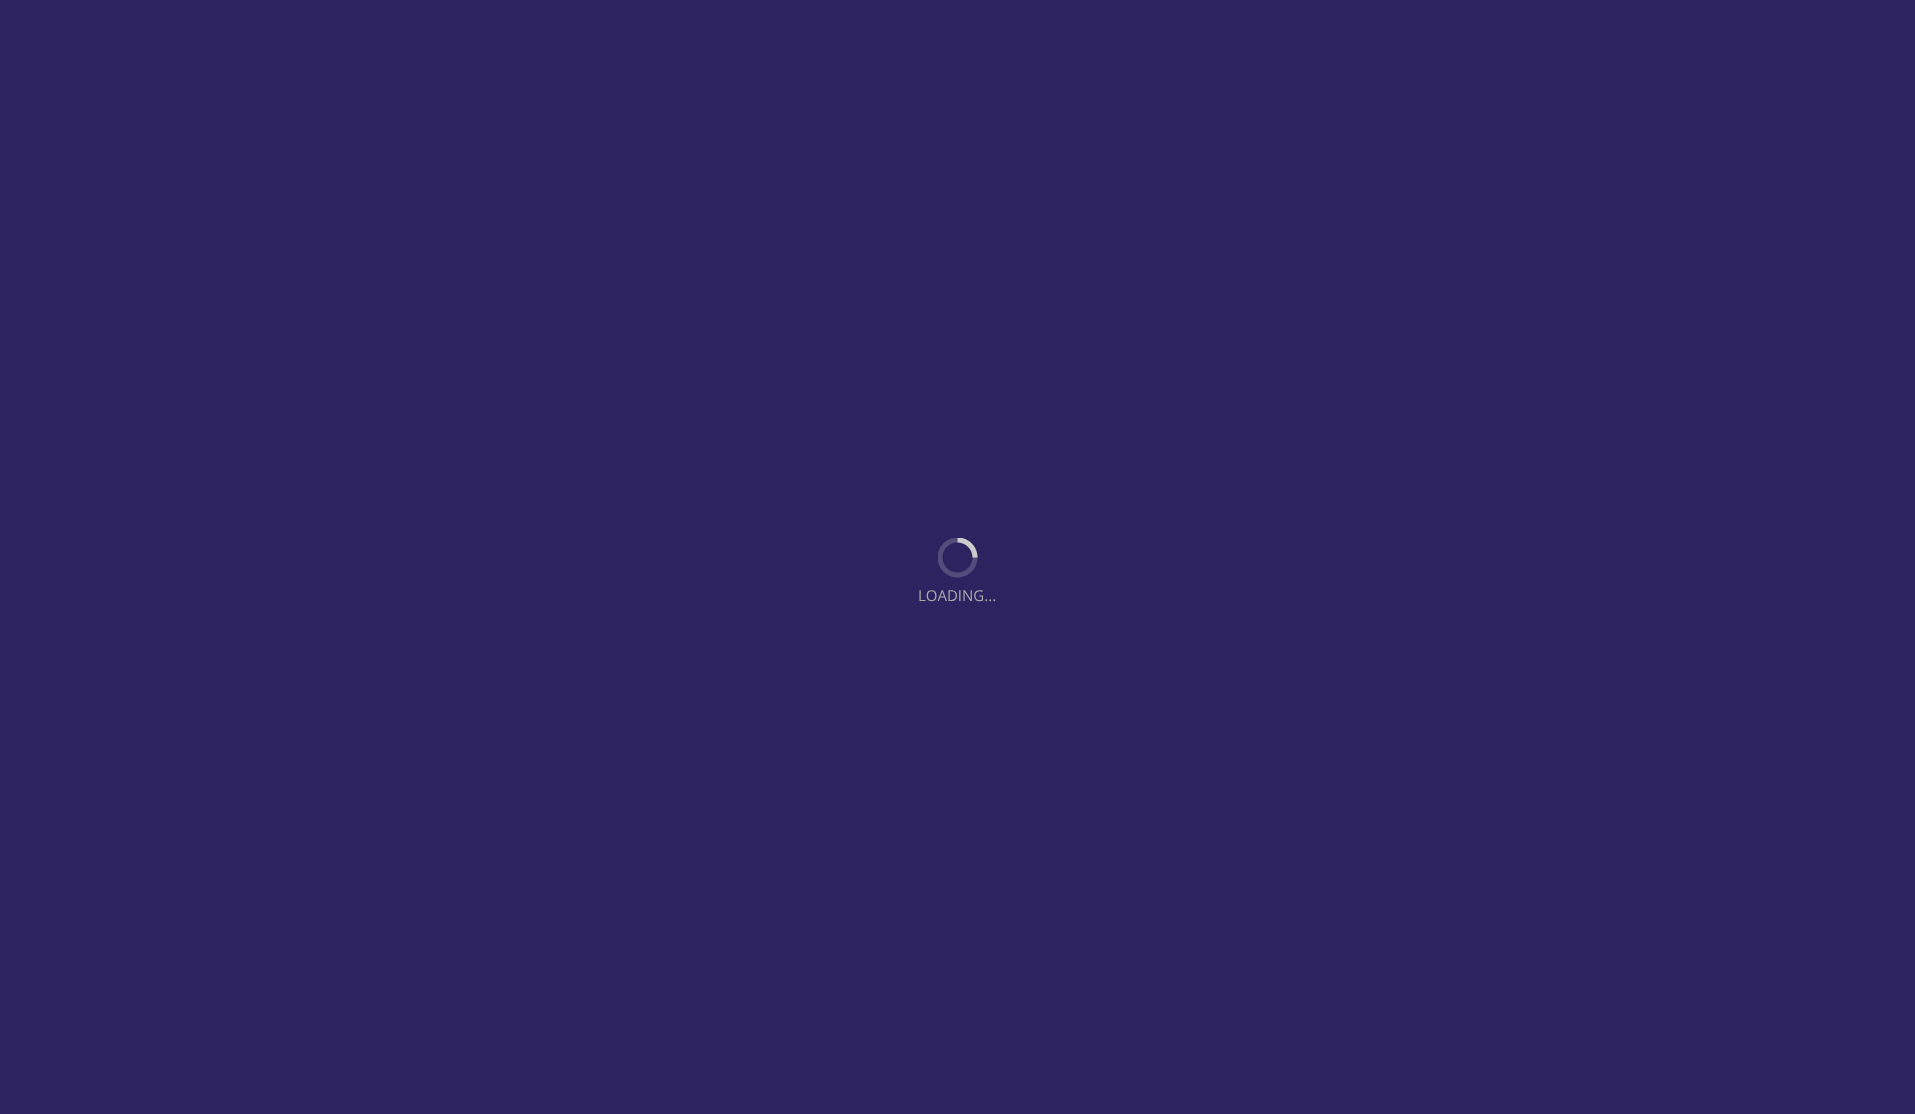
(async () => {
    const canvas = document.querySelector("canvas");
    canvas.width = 1915;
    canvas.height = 1114;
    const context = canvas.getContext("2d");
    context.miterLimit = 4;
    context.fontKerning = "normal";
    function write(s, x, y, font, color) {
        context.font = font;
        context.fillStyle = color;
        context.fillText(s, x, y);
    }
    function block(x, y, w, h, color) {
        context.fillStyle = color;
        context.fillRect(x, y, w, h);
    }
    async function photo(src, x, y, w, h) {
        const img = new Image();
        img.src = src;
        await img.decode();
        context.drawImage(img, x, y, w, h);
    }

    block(0, 0, 1915, 1114, "rgb(44, 35, 96)");
    await photo("media/1.png", 938, 538, 40, 40);
    write("LOADING...", 918, 601, "15px Open Sans", "rgb(170, 170, 170)");
})();
